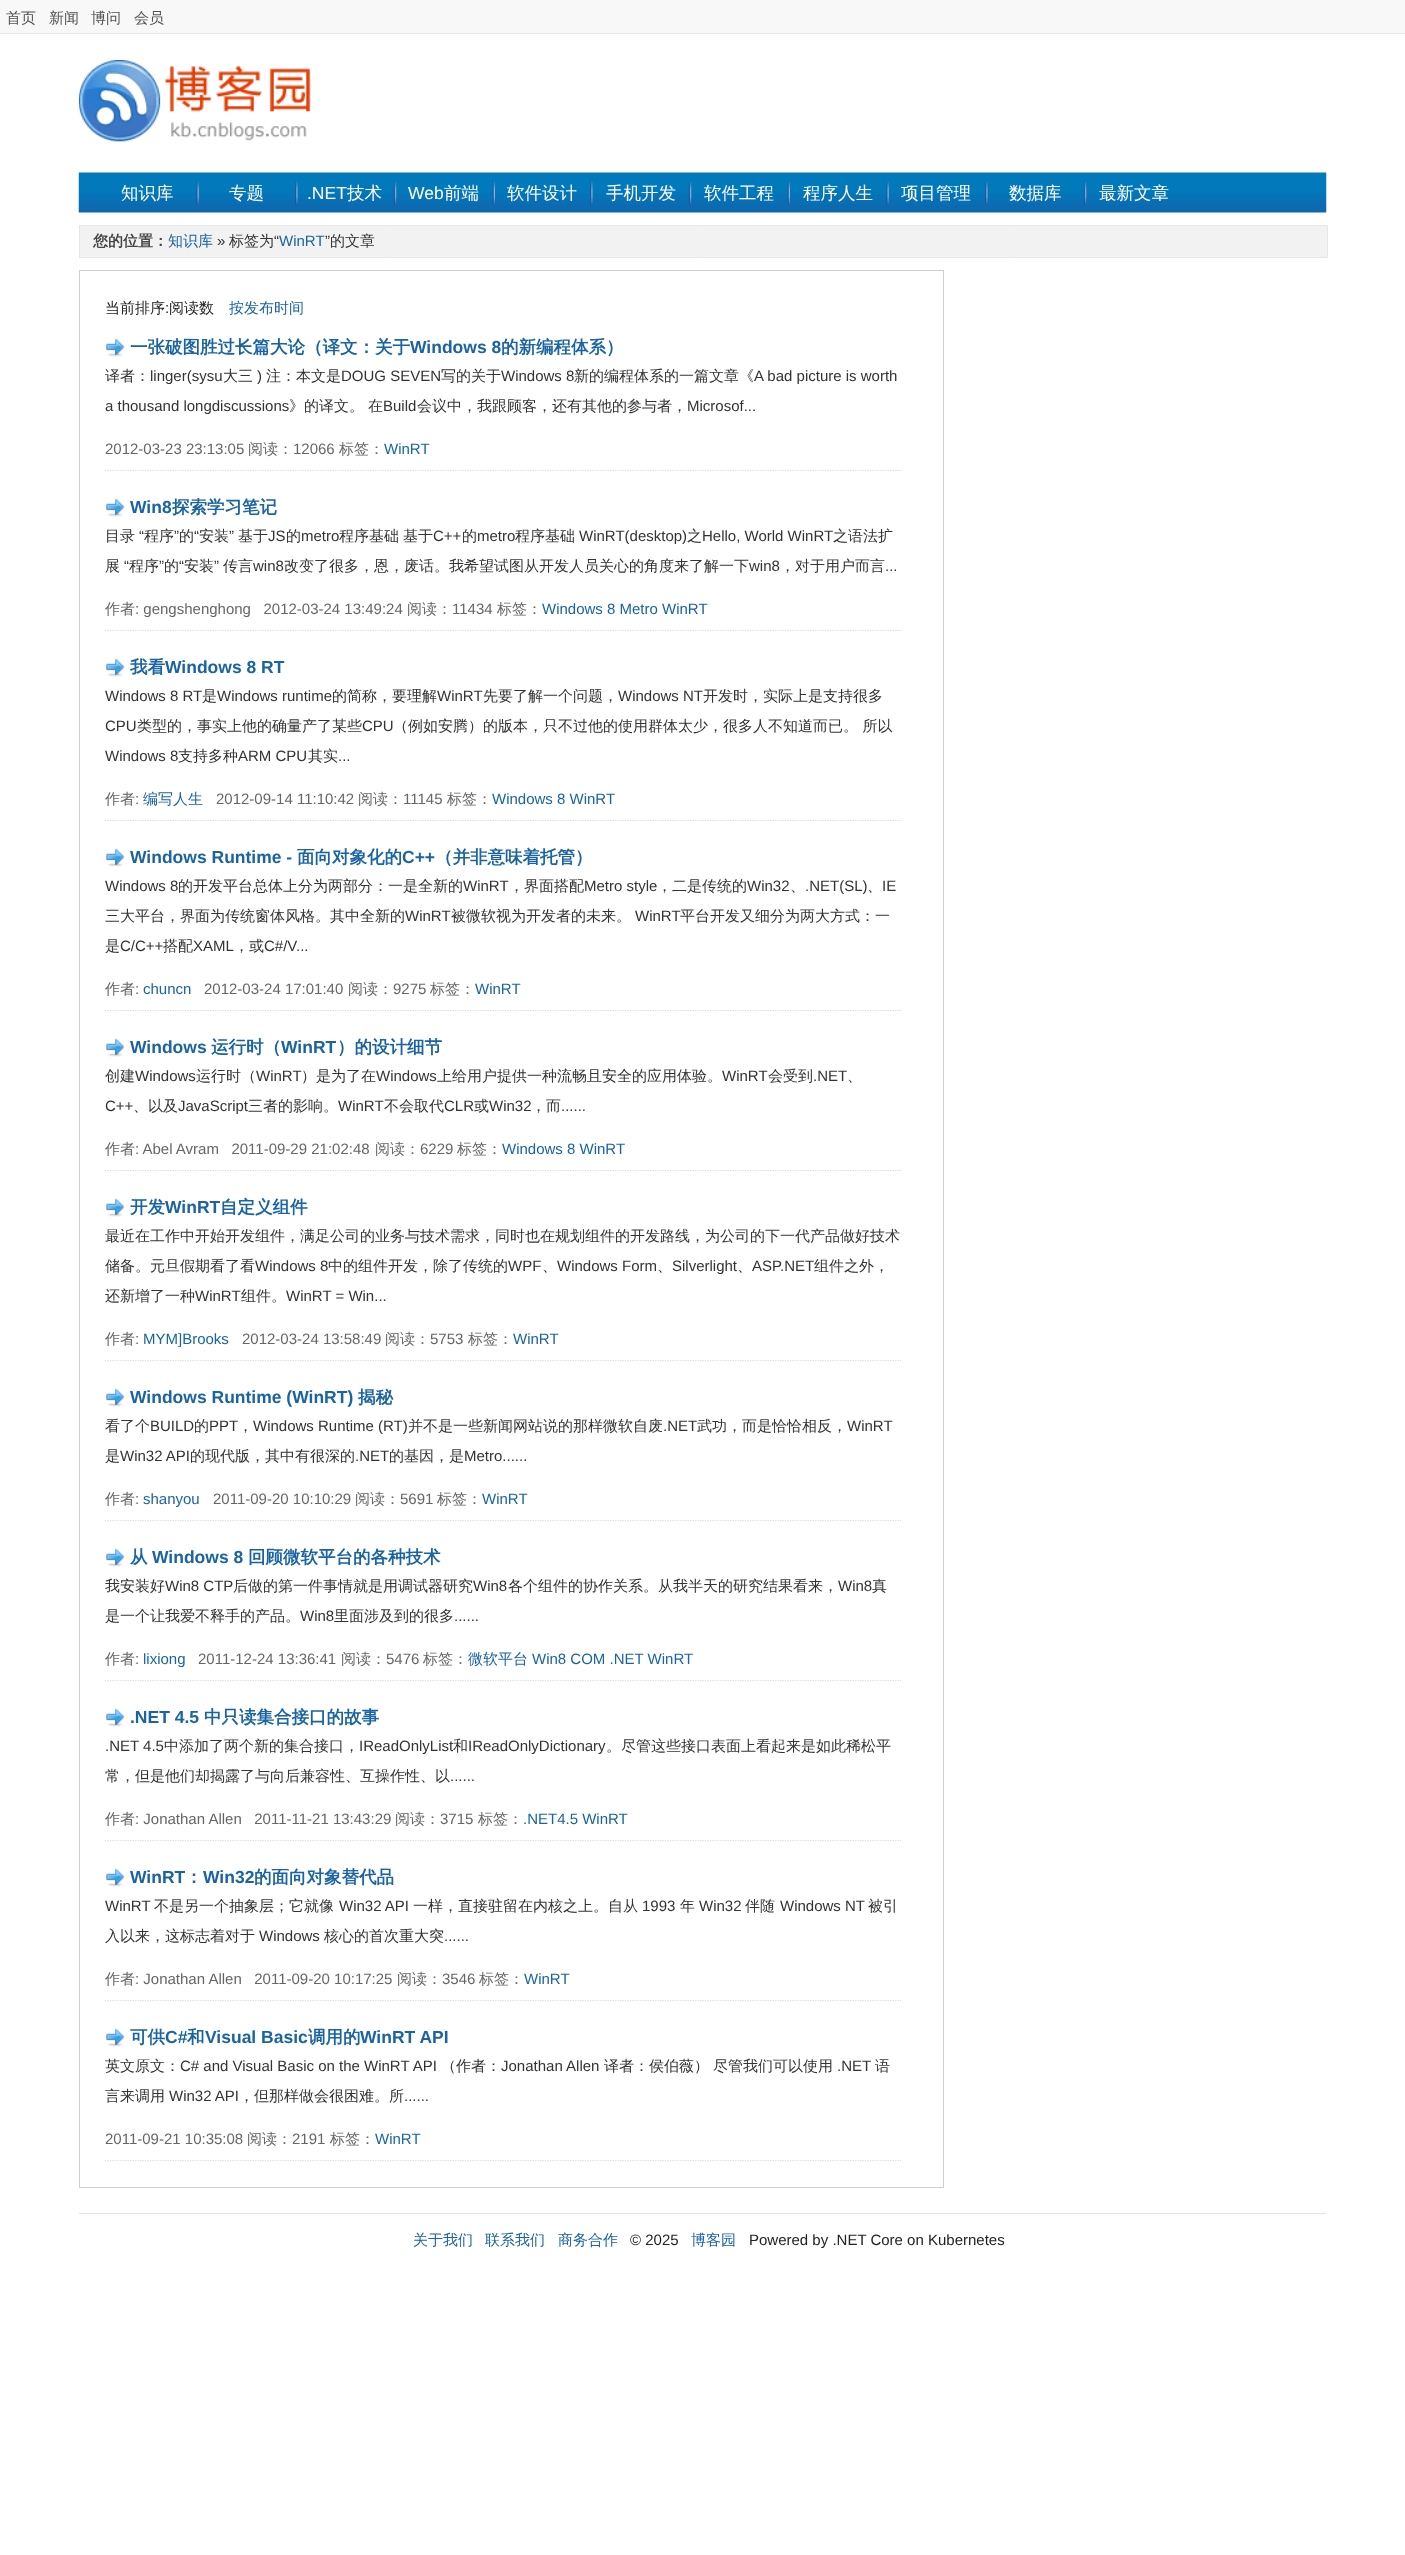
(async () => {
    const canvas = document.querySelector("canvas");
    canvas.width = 1405;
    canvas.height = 2555;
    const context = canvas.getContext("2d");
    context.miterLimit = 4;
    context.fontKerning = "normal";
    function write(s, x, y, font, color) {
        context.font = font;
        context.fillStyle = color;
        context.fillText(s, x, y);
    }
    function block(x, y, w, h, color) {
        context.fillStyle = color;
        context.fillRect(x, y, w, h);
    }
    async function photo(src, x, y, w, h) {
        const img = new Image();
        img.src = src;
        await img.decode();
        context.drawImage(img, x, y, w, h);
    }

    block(0, 0, 1405, 2555, "rgb(255, 255, 255)");
    block(0, 0, 1405, 33, "rgb(248, 248, 248)");
    block(0, 33, 1405, 1, "rgb(229, 229, 229)");
    write("首页", 6, 23, "500 15px WenQuanYi Zen Hei", "rgb(82, 82, 82)");
    write("新闻", 49, 23, "500 15px WenQuanYi Zen Hei", "rgb(82, 82, 82)");
    write("博问", 91, 23, "500 15px WenQuanYi Zen Hei", "rgb(82, 82, 82)");
    write("会员", 134, 23, "500 15px WenQuanYi Zen Hei", "rgb(82, 82, 82)");
    await photo("media/1.png", 78, 60, 233, 82);
    await photo("media/2.png", 78, 172, 1249, 41);
    write("知识库", 121, 199, "500 17.5px WenQuanYi Zen Hei", "rgb(255, 255, 255)");
    await photo("media/3.png", 196, 181, 3, 24);
    write("专题", 229, 199, "500 17.5px WenQuanYi Zen Hei", "rgb(255, 255, 255)");
    await photo("media/4.png", 295, 181, 3, 24);
    write(".NET", 307, 199, "17.5px Liberation Sans", "rgb(255, 255, 255)");
    write("技术", 347, 199, "500 17.5px WenQuanYi Zen Hei", "rgb(255, 255, 255)");
    await photo("media/5.png", 393, 181, 4, 24);
    write("Web", 408, 199, "17.5px Liberation Sans", "rgb(255, 255, 255)");
    write("前端", 444, 199, "500 17.5px WenQuanYi Zen Hei", "rgb(255, 255, 255)");
    await photo("media/6.png", 492, 181, 3, 24);
    write("软件设计", 507, 199, "500 17.5px WenQuanYi Zen Hei", "rgb(255, 255, 255)");
    await photo("media/4.png", 590, 181, 3, 24);
    write("手机开发", 606, 199, "500 17.5px WenQuanYi Zen Hei", "rgb(255, 255, 255)");
    await photo("media/5.png", 688, 181, 4, 24);
    write("软件工程", 704, 199, "500 17.5px WenQuanYi Zen Hei", "rgb(255, 255, 255)");
    await photo("media/6.png", 787, 181, 3, 24);
    write("程序人生", 803, 199, "500 17.5px WenQuanYi Zen Hei", "rgb(255, 255, 255)");
    await photo("media/3.png", 886, 181, 3, 24);
    write("项目管理", 901, 199, "500 17.5px WenQuanYi Zen Hei", "rgb(255, 255, 255)");
    await photo("media/4.png", 985, 181, 3, 24);
    write("数据库", 1009, 199, "500 17.5px WenQuanYi Zen Hei", "rgb(255, 255, 255)");
    await photo("media/5.png", 1083, 181, 4, 24);
    write("最新文章", 1099, 199, "500 17.5px WenQuanYi Zen Hei", "rgb(255, 255, 255)");
    context.fillStyle = "rgb(242, 242, 242)";
    context.beginPath();
    context.rect(79.5, 225.5, 1248, 32);
    context.fill();
    context.strokeStyle = "rgb(230, 230, 230)";
    context.stroke();
    write("您的位置：", 93, 246, "bold 15px WenQuanYi Zen Hei", "rgb(69, 69, 69)");
    write("知识库", 168, 246, "500 15px WenQuanYi Zen Hei", "rgb(26, 100, 162)");
    write("标签为", 229, 246, "500 15px WenQuanYi Zen Hei", "rgb(51, 51, 51)");
    write("“", 274, 246, "15px Liberation Sans", "rgb(51, 51, 51)");
    write("WinRT", 279, 246, "15px Liberation Sans", "rgb(26, 100, 162)");
    write("”", 325, 246, "15px Liberation Sans", "rgb(51, 51, 51)");
    write("的文章", 330, 246, "500 15px WenQuanYi Zen Hei", "rgb(51, 51, 51)");
    write("»", 217, 246, "15px Liberation Sans", "rgb(51, 51, 51)");
    context.strokeStyle = "rgb(207, 207, 207)";
    context.strokeRect(79.5, 270.5, 864, 1917);
    write("当前排序", 105, 313, "500 15px WenQuanYi Zen Hei", "rgb(35, 35, 35)");
    write(":", 165, 313, "15px Liberation Sans", "rgb(35, 35, 35)");
    write("阅读数", 169, 313, "500 15px WenQuanYi Zen Hei", "rgb(35, 35, 35)");
    write("按发布时间", 229, 313, "500 15px WenQuanYi Zen Hei", "rgb(26, 100, 162)");
    context.beginPath();
    context.moveTo(105, 470.5);
    context.lineTo(901, 470.5);
    context.strokeStyle = "rgb(217, 217, 217)";
    context.lineWidth = 1.2;
    context.setLineDash([1.25, 1.25]);
    context.stroke();
    await photo("media/7.png", 106, 338, 18, 19);
    write("一张破图胜过长篇大论（译文：关于", 130, 353, "bold 17.5px WenQuanYi Zen Hei", "rgb(26, 100, 162)");
    write("Windows 8", 410, 353, "bold 17.5px Liberation Sans", "rgb(26, 100, 162)");
    write("的新编程体系）", 501, 353, "bold 17.5px WenQuanYi Zen Hei", "rgb(26, 100, 162)");
    write("译者：", 105, 381, "500 15px WenQuanYi Zen Hei", "rgb(51, 51, 51)");
    write("linger(sysu", 150, 381, "15px Liberation Sans", "rgb(51, 51, 51)");
    write("大三", 223, 381, "500 15px WenQuanYi Zen Hei", "rgb(51, 51, 51)");
    write(")", 257, 381, "15px Liberation Sans", "rgb(51, 51, 51)");
    write("注：本文是", 266, 381, "500 15px WenQuanYi Zen Hei", "rgb(51, 51, 51)");
    write("DOUG SEVEN", 341, 381, "15px Liberation Sans", "rgb(51, 51, 51)");
    write("写的关于", 441, 381, "500 15px WenQuanYi Zen Hei", "rgb(51, 51, 51)");
    write("Windows 8", 501, 381, "15px Liberation Sans", "rgb(51, 51, 51)");
    write("新的编程体系的一篇文章《", 574, 381, "500 15px WenQuanYi Zen Hei", "rgb(51, 51, 51)");
    write("A bad picture is worth", 754, 381, "15px Liberation Sans", "rgb(51, 51, 51)");
    write("a thousand longdiscussions", 105, 411, "15px Liberation Sans", "rgb(51, 51, 51)");
    write("》的译文。", 289, 411, "500 15px WenQuanYi Zen Hei", "rgb(51, 51, 51)");
    write("在", 368, 411, "500 15px WenQuanYi Zen Hei", "rgb(51, 51, 51)");
    write("Build", 383, 411, "15px Liberation Sans", "rgb(51, 51, 51)");
    write("会议中，我跟顾客，还有其他的参与者，", 417, 411, "500 15px WenQuanYi Zen Hei", "rgb(51, 51, 51)");
    write("Microsof...", 687, 411, "15px Liberation Sans", "rgb(51, 51, 51)");
    write("2012-03-23 23:13:05", 105, 454, "15px Liberation Sans", "rgb(102, 102, 102)");
    write("阅读：", 248, 454, "500 15px WenQuanYi Zen Hei", "rgb(102, 102, 102)");
    write("12066", 293, 454, "15px Liberation Sans", "rgb(102, 102, 102)");
    write("标签：", 339, 454, "500 15px WenQuanYi Zen Hei", "rgb(102, 102, 102)");
    write("WinRT", 384, 454, "15px Liberation Sans", "rgb(26, 100, 162)");
    context.beginPath();
    context.moveTo(105, 630.5);
    context.lineTo(901, 630.5);
    context.stroke();
    await photo("media/7.png", 106, 498, 18, 19);
    write("Win8", 130, 513, "bold 17.5px Liberation Sans", "rgb(26, 100, 162)");
    write("探索学习笔记", 172, 513, "bold 17.5px WenQuanYi Zen Hei", "rgb(26, 100, 162)");
    write("目录", 105, 541, "500 15px WenQuanYi Zen Hei", "rgb(51, 51, 51)");
    write("“", 139, 541, "15px Liberation Sans", "rgb(51, 51, 51)");
    write("程序", 144, 541, "500 15px WenQuanYi Zen Hei", "rgb(51, 51, 51)");
    write("”", 174, 541, "15px Liberation Sans", "rgb(51, 51, 51)");
    write("的", 179, 541, "500 15px WenQuanYi Zen Hei", "rgb(51, 51, 51)");
    write("“", 194, 541, "15px Liberation Sans", "rgb(51, 51, 51)");
    write("安装", 199, 541, "500 15px WenQuanYi Zen Hei", "rgb(51, 51, 51)");
    write("”", 229, 541, "15px Liberation Sans", "rgb(51, 51, 51)");
    write("基于", 238, 541, "500 15px WenQuanYi Zen Hei", "rgb(51, 51, 51)");
    write("JS", 268, 541, "15px Liberation Sans", "rgb(51, 51, 51)");
    write("的", 286, 541, "500 15px WenQuanYi Zen Hei", "rgb(51, 51, 51)");
    write("metro", 301, 541, "15px Liberation Sans", "rgb(51, 51, 51)");
    write("程序基础", 339, 541, "500 15px WenQuanYi Zen Hei", "rgb(51, 51, 51)");
    write("基于", 403, 541, "500 15px WenQuanYi Zen Hei", "rgb(51, 51, 51)");
    write("C++", 433, 541, "15px Liberation Sans", "rgb(51, 51, 51)");
    write("的", 462, 541, "500 15px WenQuanYi Zen Hei", "rgb(51, 51, 51)");
    write("metro", 477, 541, "15px Liberation Sans", "rgb(51, 51, 51)");
    write("程序基础", 515, 541, "500 15px WenQuanYi Zen Hei", "rgb(51, 51, 51)");
    write("WinRT(desktop)", 579, 541, "15px Liberation Sans", "rgb(51, 51, 51)");
    write("之", 687, 541, "500 15px WenQuanYi Zen Hei", "rgb(51, 51, 51)");
    write("Hello, World WinRT", 702, 541, "15px Liberation Sans", "rgb(51, 51, 51)");
    write("之语法扩", 833, 541, "500 15px WenQuanYi Zen Hei", "rgb(51, 51, 51)");
    write("展", 105, 571, "500 15px WenQuanYi Zen Hei", "rgb(51, 51, 51)");
    write("“", 124, 571, "15px Liberation Sans", "rgb(51, 51, 51)");
    write("程序", 129, 571, "500 15px WenQuanYi Zen Hei", "rgb(51, 51, 51)");
    write("”", 159, 571, "15px Liberation Sans", "rgb(51, 51, 51)");
    write("的", 164, 571, "500 15px WenQuanYi Zen Hei", "rgb(51, 51, 51)");
    write("“", 179, 571, "15px Liberation Sans", "rgb(51, 51, 51)");
    write("安装", 184, 571, "500 15px WenQuanYi Zen Hei", "rgb(51, 51, 51)");
    write("”", 214, 571, "15px Liberation Sans", "rgb(51, 51, 51)");
    write("传言", 223, 571, "500 15px WenQuanYi Zen Hei", "rgb(51, 51, 51)");
    write("win8", 253, 571, "15px Liberation Sans", "rgb(51, 51, 51)");
    write("改变了很多，恩，废话。我希望试图从开发人员关心的角度来了解一下", 284, 571, "500 15px WenQuanYi Zen Hei", "rgb(51, 51, 51)");
    write("win8", 749, 571, "15px Liberation Sans", "rgb(51, 51, 51)");
    write("，对于用户而言", 780, 571, "500 15px WenQuanYi Zen Hei", "rgb(51, 51, 51)");
    write("...", 885, 571, "15px Liberation Sans", "rgb(51, 51, 51)");
    write("作者", 105, 614, "500 15px WenQuanYi Zen Hei", "rgb(102, 102, 102)");
    write(": gengshenghong   2012-03-24 13:49:24", 135, 614, "15px Liberation Sans", "rgb(102, 102, 102)");
    write("阅读：", 407, 614, "500 15px WenQuanYi Zen Hei", "rgb(102, 102, 102)");
    write("11434", 452, 614, "15px Liberation Sans", "rgb(102, 102, 102)");
    write("标签：", 497, 614, "500 15px WenQuanYi Zen Hei", "rgb(102, 102, 102)");
    write("Windows 8 Metro WinRT", 542, 614, "15px Liberation Sans", "rgb(26, 100, 162)");
    context.beginPath();
    context.moveTo(105, 820.5);
    context.lineTo(901, 820.5);
    context.stroke();
    await photo("media/7.png", 106, 658, 18, 19);
    write("我看", 130, 673, "bold 17.5px WenQuanYi Zen Hei", "rgb(26, 100, 162)");
    write("Windows 8 RT", 165, 673, "bold 17.5px Liberation Sans", "rgb(26, 100, 162)");
    write("Windows 8 RT", 105, 701, "15px Liberation Sans", "rgb(51, 51, 51)");
    write("是", 202, 701, "500 15px WenQuanYi Zen Hei", "rgb(51, 51, 51)");
    write("Windows runtime", 217, 701, "15px Liberation Sans", "rgb(51, 51, 51)");
    write("的简称，要理解", 332, 701, "500 15px WenQuanYi Zen Hei", "rgb(51, 51, 51)");
    write("WinRT", 437, 701, "15px Liberation Sans", "rgb(51, 51, 51)");
    write("先要了解一个问题，", 483, 701, "500 15px WenQuanYi Zen Hei", "rgb(51, 51, 51)");
    write("Windows NT", 618, 701, "15px Liberation Sans", "rgb(51, 51, 51)");
    write("开发时，实际上是支持很多", 703, 701, "500 15px WenQuanYi Zen Hei", "rgb(51, 51, 51)");
    write("CPU", 105, 731, "15px Liberation Sans", "rgb(51, 51, 51)");
    write("类型的，事实上他的确量产了某些", 137, 731, "500 15px WenQuanYi Zen Hei", "rgb(51, 51, 51)");
    write("CPU", 362, 731, "15px Liberation Sans", "rgb(51, 51, 51)");
    write("（例如安腾）的版本，只不过他的使用群体太少，很多人不知道而已。 所以", 393, 731, "500 15px WenQuanYi Zen Hei", "rgb(51, 51, 51)");
    write("Windows 8", 105, 761, "15px Liberation Sans", "rgb(51, 51, 51)");
    write("支持多种", 178, 761, "500 15px WenQuanYi Zen Hei", "rgb(51, 51, 51)");
    write("ARM CPU", 238, 761, "15px Liberation Sans", "rgb(51, 51, 51)");
    write("其实", 308, 761, "500 15px WenQuanYi Zen Hei", "rgb(51, 51, 51)");
    write("...", 338, 761, "15px Liberation Sans", "rgb(51, 51, 51)");
    write("作者", 105, 804, "500 15px WenQuanYi Zen Hei", "rgb(102, 102, 102)");
    write(":", 135, 804, "15px Liberation Sans", "rgb(102, 102, 102)");
    write("编写人生", 143, 804, "500 15px WenQuanYi Zen Hei", "rgb(26, 100, 162)");
    write("2012-09-14 11:10:42", 216, 804, "15px Liberation Sans", "rgb(102, 102, 102)");
    write("阅读：", 358, 804, "500 15px WenQuanYi Zen Hei", "rgb(102, 102, 102)");
    write("11145", 403, 804, "15px Liberation Sans", "rgb(102, 102, 102)");
    write("标签：", 447, 804, "500 15px WenQuanYi Zen Hei", "rgb(102, 102, 102)");
    write("Windows 8 WinRT", 492, 804, "15px Liberation Sans", "rgb(26, 100, 162)");
    context.beginPath();
    context.moveTo(105, 1010.5);
    context.lineTo(901, 1010.5);
    context.stroke();
    await photo("media/7.png", 106, 848, 18, 19);
    write("Windows Runtime -", 130, 863, "bold 17.5px Liberation Sans", "rgb(26, 100, 162)");
    write("面向对象化的", 297, 863, "bold 17.5px WenQuanYi Zen Hei", "rgb(26, 100, 162)");
    write("C++", 402, 863, "bold 17.5px Liberation Sans", "rgb(26, 100, 162)");
    write("（并非意味着托管）", 435, 863, "bold 17.5px WenQuanYi Zen Hei", "rgb(26, 100, 162)");
    write("Windows 8", 105, 891, "15px Liberation Sans", "rgb(51, 51, 51)");
    write("的开发平台总体上分为两部分：一是全新的", 178, 891, "500 15px WenQuanYi Zen Hei", "rgb(51, 51, 51)");
    write("WinRT", 463, 891, "15px Liberation Sans", "rgb(51, 51, 51)");
    write("，界面搭配", 509, 891, "500 15px WenQuanYi Zen Hei", "rgb(51, 51, 51)");
    write("Metro style", 584, 891, "15px Liberation Sans", "rgb(51, 51, 51)");
    write("，二是传统的", 657, 891, "500 15px WenQuanYi Zen Hei", "rgb(51, 51, 51)");
    write("Win32", 747, 891, "15px Liberation Sans", "rgb(51, 51, 51)");
    write("、", 790, 891, "500 15px WenQuanYi Zen Hei", "rgb(51, 51, 51)");
    write(".NET(SL)", 805, 891, "15px Liberation Sans", "rgb(51, 51, 51)");
    write("、", 867, 891, "500 15px WenQuanYi Zen Hei", "rgb(51, 51, 51)");
    write("IE", 882, 891, "15px Liberation Sans", "rgb(51, 51, 51)");
    write("三大平台，界面为传统窗体风格。其中全新的", 105, 921, "500 15px WenQuanYi Zen Hei", "rgb(51, 51, 51)");
    write("WinRT", 405, 921, "15px Liberation Sans", "rgb(51, 51, 51)");
    write("被微软视为开发者的未来。", 451, 921, "500 15px WenQuanYi Zen Hei", "rgb(51, 51, 51)");
    write("WinRT", 635, 921, "15px Liberation Sans", "rgb(51, 51, 51)");
    write("平台开发又细分为两大方式：一", 680, 921, "500 15px WenQuanYi Zen Hei", "rgb(51, 51, 51)");
    write("是", 105, 951, "500 15px WenQuanYi Zen Hei", "rgb(51, 51, 51)");
    write("C/C++", 120, 951, "15px Liberation Sans", "rgb(51, 51, 51)");
    write("搭配", 163, 951, "500 15px WenQuanYi Zen Hei", "rgb(51, 51, 51)");
    write("XAML", 193, 951, "15px Liberation Sans", "rgb(51, 51, 51)");
    write("，或", 234, 951, "500 15px WenQuanYi Zen Hei", "rgb(51, 51, 51)");
    write("C#/V...", 264, 951, "15px Liberation Sans", "rgb(51, 51, 51)");
    write("作者", 105, 994, "500 15px WenQuanYi Zen Hei", "rgb(102, 102, 102)");
    write(":", 135, 994, "15px Liberation Sans", "rgb(102, 102, 102)");
    write("chuncn", 143, 994, "15px Liberation Sans", "rgb(26, 100, 162)");
    write("2012-03-24 17:01:40", 204, 994, "15px Liberation Sans", "rgb(102, 102, 102)");
    write("阅读：", 348, 994, "500 15px WenQuanYi Zen Hei", "rgb(102, 102, 102)");
    write("9275", 393, 994, "15px Liberation Sans", "rgb(102, 102, 102)");
    write("标签：", 430, 994, "500 15px WenQuanYi Zen Hei", "rgb(102, 102, 102)");
    write("WinRT", 475, 994, "15px Liberation Sans", "rgb(26, 100, 162)");
    context.beginPath();
    context.moveTo(105, 1170.5);
    context.lineTo(901, 1170.5);
    context.stroke();
    await photo("media/7.png", 106, 1038, 18, 19);
    write("Windows", 130, 1053, "bold 17.5px Liberation Sans", "rgb(26, 100, 162)");
    write("运行时（", 211, 1053, "bold 17.5px WenQuanYi Zen Hei", "rgb(26, 100, 162)");
    write("WinRT", 281, 1053, "bold 17.5px Liberation Sans", "rgb(26, 100, 162)");
    write("）的设计细节", 337, 1053, "bold 17.5px WenQuanYi Zen Hei", "rgb(26, 100, 162)");
    write("创建", 105, 1081, "500 15px WenQuanYi Zen Hei", "rgb(51, 51, 51)");
    write("Windows", 135, 1081, "15px Liberation Sans", "rgb(51, 51, 51)");
    write("运行时（", 196, 1081, "500 15px WenQuanYi Zen Hei", "rgb(51, 51, 51)");
    write("WinRT", 256, 1081, "15px Liberation Sans", "rgb(51, 51, 51)");
    write("）是为了在", 301, 1081, "500 15px WenQuanYi Zen Hei", "rgb(51, 51, 51)");
    write("Windows", 376, 1081, "15px Liberation Sans", "rgb(51, 51, 51)");
    write("上给用户提供一种流畅且安全的应用体验。", 437, 1081, "500 15px WenQuanYi Zen Hei", "rgb(51, 51, 51)");
    write("WinRT", 722, 1081, "15px Liberation Sans", "rgb(51, 51, 51)");
    write("会受到", 768, 1081, "500 15px WenQuanYi Zen Hei", "rgb(51, 51, 51)");
    write(".NET", 813, 1081, "15px Liberation Sans", "rgb(51, 51, 51)");
    write("、", 847, 1081, "500 15px WenQuanYi Zen Hei", "rgb(51, 51, 51)");
    write("C++", 105, 1111, "15px Liberation Sans", "rgb(51, 51, 51)");
    write("、以及", 133, 1111, "500 15px WenQuanYi Zen Hei", "rgb(51, 51, 51)");
    write("JavaScript", 178, 1111, "15px Liberation Sans", "rgb(51, 51, 51)");
    write("三者的影响。", 248, 1111, "500 15px WenQuanYi Zen Hei", "rgb(51, 51, 51)");
    write("WinRT", 338, 1111, "15px Liberation Sans", "rgb(51, 51, 51)");
    write("不会取代", 384, 1111, "500 15px WenQuanYi Zen Hei", "rgb(51, 51, 51)");
    write("CLR", 444, 1111, "15px Liberation Sans", "rgb(51, 51, 51)");
    write("或", 474, 1111, "500 15px WenQuanYi Zen Hei", "rgb(51, 51, 51)");
    write("Win32", 489, 1111, "15px Liberation Sans", "rgb(51, 51, 51)");
    write("，而", 531, 1111, "500 15px WenQuanYi Zen Hei", "rgb(51, 51, 51)");
    write("......", 561, 1111, "15px Liberation Sans", "rgb(51, 51, 51)");
    write("作者", 105, 1154, "500 15px WenQuanYi Zen Hei", "rgb(102, 102, 102)");
    write(": Abel Avram   2011-09-29 21:02:48", 135, 1154, "15px Liberation Sans", "rgb(102, 102, 102)");
    write("阅读：", 375, 1154, "500 15px WenQuanYi Zen Hei", "rgb(102, 102, 102)");
    write("6229", 420, 1154, "15px Liberation Sans", "rgb(102, 102, 102)");
    write("标签：", 457, 1154, "500 15px WenQuanYi Zen Hei", "rgb(102, 102, 102)");
    write("Windows 8 WinRT", 502, 1154, "15px Liberation Sans", "rgb(26, 100, 162)");
    context.beginPath();
    context.moveTo(105, 1360.5);
    context.lineTo(901, 1360.5);
    context.stroke();
    await photo("media/7.png", 106, 1198, 18, 19);
    write("开发", 130, 1213, "bold 17.5px WenQuanYi Zen Hei", "rgb(26, 100, 162)");
    write("WinRT", 165, 1213, "bold 17.5px Liberation Sans", "rgb(26, 100, 162)");
    write("自定义组件", 220, 1213, "bold 17.5px WenQuanYi Zen Hei", "rgb(26, 100, 162)");
    write("最近在工作中开始开发组件，满足公司的业务与技术需求，同时也在规划组件的开发路线，为公司的下一代产品做好技术", 105, 1241, "500 15px WenQuanYi Zen Hei", "rgb(51, 51, 51)");
    write("储备。元旦假期看了看", 105, 1271, "500 15px WenQuanYi Zen Hei", "rgb(51, 51, 51)");
    write("Windows 8", 255, 1271, "15px Liberation Sans", "rgb(51, 51, 51)");
    write("中的组件开发，除了传统的", 328, 1271, "500 15px WenQuanYi Zen Hei", "rgb(51, 51, 51)");
    write("WPF", 508, 1271, "15px Liberation Sans", "rgb(51, 51, 51)");
    write("、", 542, 1271, "500 15px WenQuanYi Zen Hei", "rgb(51, 51, 51)");
    write("Windows Form", 557, 1271, "15px Liberation Sans", "rgb(51, 51, 51)");
    write("、", 657, 1271, "500 15px WenQuanYi Zen Hei", "rgb(51, 51, 51)");
    write("Silverlight", 672, 1271, "15px Liberation Sans", "rgb(51, 51, 51)");
    write("、", 737, 1271, "500 15px WenQuanYi Zen Hei", "rgb(51, 51, 51)");
    write("ASP.NET", 752, 1271, "15px Liberation Sans", "rgb(51, 51, 51)");
    write("组件之外，", 814, 1271, "500 15px WenQuanYi Zen Hei", "rgb(51, 51, 51)");
    write("还新增了一种", 105, 1301, "500 15px WenQuanYi Zen Hei", "rgb(51, 51, 51)");
    write("WinRT", 195, 1301, "15px Liberation Sans", "rgb(51, 51, 51)");
    write("组件。", 241, 1301, "500 15px WenQuanYi Zen Hei", "rgb(51, 51, 51)");
    write("WinRT = Win...", 286, 1301, "15px Liberation Sans", "rgb(51, 51, 51)");
    write("作者", 105, 1344, "500 15px WenQuanYi Zen Hei", "rgb(102, 102, 102)");
    write(":", 135, 1344, "15px Liberation Sans", "rgb(102, 102, 102)");
    write("MYM]Brooks", 143, 1344, "15px Liberation Sans", "rgb(26, 100, 162)");
    write("2012-03-24 13:58:49", 242, 1344, "15px Liberation Sans", "rgb(102, 102, 102)");
    write("阅读：", 385, 1344, "500 15px WenQuanYi Zen Hei", "rgb(102, 102, 102)");
    write("5753", 430, 1344, "15px Liberation Sans", "rgb(102, 102, 102)");
    write("标签：", 468, 1344, "500 15px WenQuanYi Zen Hei", "rgb(102, 102, 102)");
    write("WinRT", 513, 1344, "15px Liberation Sans", "rgb(26, 100, 162)");
    context.beginPath();
    context.moveTo(105, 1520.5);
    context.lineTo(901, 1520.5);
    context.stroke();
    await photo("media/7.png", 106, 1388, 18, 19);
    write("Windows Runtime (WinRT)", 130, 1403, "bold 17.5px Liberation Sans", "rgb(26, 100, 162)");
    write("揭秘", 358, 1403, "bold 17.5px WenQuanYi Zen Hei", "rgb(26, 100, 162)");
    write("看了个", 105, 1431, "500 15px WenQuanYi Zen Hei", "rgb(51, 51, 51)");
    write("BUILD", 150, 1431, "15px Liberation Sans", "rgb(51, 51, 51)");
    write("的", 194, 1431, "500 15px WenQuanYi Zen Hei", "rgb(51, 51, 51)");
    write("PPT", 209, 1431, "15px Liberation Sans", "rgb(51, 51, 51)");
    write("，", 238, 1431, "500 15px WenQuanYi Zen Hei", "rgb(51, 51, 51)");
    write("Windows Runtime (RT)", 253, 1431, "15px Liberation Sans", "rgb(51, 51, 51)");
    write("并不是一些新闻网站说的那样微软自废", 408, 1431, "500 15px WenQuanYi Zen Hei", "rgb(51, 51, 51)");
    write(".NET", 663, 1431, "15px Liberation Sans", "rgb(51, 51, 51)");
    write("武功，而是恰恰相反，", 697, 1431, "500 15px WenQuanYi Zen Hei", "rgb(51, 51, 51)");
    write("WinRT", 847, 1431, "15px Liberation Sans", "rgb(51, 51, 51)");
    write("是", 105, 1461, "500 15px WenQuanYi Zen Hei", "rgb(51, 51, 51)");
    write("Win32 API", 120, 1461, "15px Liberation Sans", "rgb(51, 51, 51)");
    write("的现代版，其中有很深的", 190, 1461, "500 15px WenQuanYi Zen Hei", "rgb(51, 51, 51)");
    write(".NET", 355, 1461, "15px Liberation Sans", "rgb(51, 51, 51)");
    write("的基因，是", 389, 1461, "500 15px WenQuanYi Zen Hei", "rgb(51, 51, 51)");
    write("Metro......", 464, 1461, "15px Liberation Sans", "rgb(51, 51, 51)");
    write("作者", 105, 1504, "500 15px WenQuanYi Zen Hei", "rgb(102, 102, 102)");
    write(":", 135, 1504, "15px Liberation Sans", "rgb(102, 102, 102)");
    write("shanyou", 143, 1504, "15px Liberation Sans", "rgb(26, 100, 162)");
    write("2011-09-20 10:10:29", 213, 1504, "15px Liberation Sans", "rgb(102, 102, 102)");
    write("阅读：", 355, 1504, "500 15px WenQuanYi Zen Hei", "rgb(102, 102, 102)");
    write("5691", 400, 1504, "15px Liberation Sans", "rgb(102, 102, 102)");
    write("标签：", 437, 1504, "500 15px WenQuanYi Zen Hei", "rgb(102, 102, 102)");
    write("WinRT", 482, 1504, "15px Liberation Sans", "rgb(26, 100, 162)");
    context.beginPath();
    context.moveTo(105, 1680.5);
    context.lineTo(901, 1680.5);
    context.stroke();
    await photo("media/7.png", 106, 1548, 18, 19);
    write("从", 130, 1563, "bold 17.5px WenQuanYi Zen Hei", "rgb(26, 100, 162)");
    write("Windows 8", 152, 1563, "bold 17.5px Liberation Sans", "rgb(26, 100, 162)");
    write("回顾微软平台的各种技术", 248, 1563, "bold 17.5px WenQuanYi Zen Hei", "rgb(26, 100, 162)");
    write("我安装好", 105, 1591, "500 15px WenQuanYi Zen Hei", "rgb(51, 51, 51)");
    write("Win8 CTP", 165, 1591, "15px Liberation Sans", "rgb(51, 51, 51)");
    write("后做的第一件事情就是用调试器研究", 233, 1591, "500 15px WenQuanYi Zen Hei", "rgb(51, 51, 51)");
    write("Win8", 473, 1591, "15px Liberation Sans", "rgb(51, 51, 51)");
    write("各个组件的协作关系。从我半天的研究结果看来，", 508, 1591, "500 15px WenQuanYi Zen Hei", "rgb(51, 51, 51)");
    write("Win8", 838, 1591, "15px Liberation Sans", "rgb(51, 51, 51)");
    write("真", 872, 1591, "500 15px WenQuanYi Zen Hei", "rgb(51, 51, 51)");
    write("是一个让我爱不释手的产品。", 105, 1621, "500 15px WenQuanYi Zen Hei", "rgb(51, 51, 51)");
    write("Win8", 300, 1621, "15px Liberation Sans", "rgb(51, 51, 51)");
    write("里面涉及到的很多", 334, 1621, "500 15px WenQuanYi Zen Hei", "rgb(51, 51, 51)");
    write("......", 454, 1621, "15px Liberation Sans", "rgb(51, 51, 51)");
    write("作者", 105, 1664, "500 15px WenQuanYi Zen Hei", "rgb(102, 102, 102)");
    write(":", 135, 1664, "15px Liberation Sans", "rgb(102, 102, 102)");
    write("lixiong", 143, 1664, "15px Liberation Sans", "rgb(26, 100, 162)");
    write("2011-12-24 13:36:41", 198, 1664, "15px Liberation Sans", "rgb(102, 102, 102)");
    write("阅读：", 341, 1664, "500 15px WenQuanYi Zen Hei", "rgb(102, 102, 102)");
    write("5476", 386, 1664, "15px Liberation Sans", "rgb(102, 102, 102)");
    write("标签：", 423, 1664, "500 15px WenQuanYi Zen Hei", "rgb(102, 102, 102)");
    write("微软平台", 468, 1664, "500 15px WenQuanYi Zen Hei", "rgb(26, 100, 162)");
    write("Win8 COM .NET WinRT", 532, 1664, "15px Liberation Sans", "rgb(26, 100, 162)");
    context.beginPath();
    context.moveTo(105, 1840.5);
    context.lineTo(901, 1840.5);
    context.stroke();
    await photo("media/7.png", 106, 1708, 18, 19);
    write(".NET 4.5", 130, 1723, "bold 17.5px Liberation Sans", "rgb(26, 100, 162)");
    write("中只读集合接口的故事", 204, 1723, "bold 17.5px WenQuanYi Zen Hei", "rgb(26, 100, 162)");
    write(".NET 4.5", 105, 1751, "15px Liberation Sans", "rgb(51, 51, 51)");
    write("中添加了两个新的集合接口，", 164, 1751, "500 15px WenQuanYi Zen Hei", "rgb(51, 51, 51)");
    write("IReadOnlyList", 359, 1751, "15px Liberation Sans", "rgb(51, 51, 51)");
    write("和", 453, 1751, "500 15px WenQuanYi Zen Hei", "rgb(51, 51, 51)");
    write("IReadOnlyDictionary", 468, 1751, "15px Liberation Sans", "rgb(51, 51, 51)");
    write("。尽管这些接口表面上看起来是如此稀松平", 606, 1751, "500 15px WenQuanYi Zen Hei", "rgb(51, 51, 51)");
    write("常，但是他们却揭露了与向后兼容性、互操作性、以", 105, 1781, "500 15px WenQuanYi Zen Hei", "rgb(51, 51, 51)");
    write("......", 450, 1781, "15px Liberation Sans", "rgb(51, 51, 51)");
    write("作者", 105, 1824, "500 15px WenQuanYi Zen Hei", "rgb(102, 102, 102)");
    write(": Jonathan Allen   2011-11-21 13:43:29", 135, 1824, "15px Liberation Sans", "rgb(102, 102, 102)");
    write("阅读：", 395, 1824, "500 15px WenQuanYi Zen Hei", "rgb(102, 102, 102)");
    write("3715", 440, 1824, "15px Liberation Sans", "rgb(102, 102, 102)");
    write("标签：", 478, 1824, "500 15px WenQuanYi Zen Hei", "rgb(102, 102, 102)");
    write(".NET4.5 WinRT", 523, 1824, "15px Liberation Sans", "rgb(26, 100, 162)");
    context.beginPath();
    context.moveTo(105, 2000.5);
    context.lineTo(901, 2000.5);
    context.stroke();
    await photo("media/7.png", 106, 1868, 18, 19);
    write("WinRT", 130, 1883, "bold 17.5px Liberation Sans", "rgb(26, 100, 162)");
    write("：", 185, 1883, "bold 17.5px WenQuanYi Zen Hei", "rgb(26, 100, 162)");
    write("Win32", 203, 1883, "bold 17.5px Liberation Sans", "rgb(26, 100, 162)");
    write("的面向对象替代品", 254, 1883, "bold 17.5px WenQuanYi Zen Hei", "rgb(26, 100, 162)");
    write("WinRT", 105, 1911, "15px Liberation Sans", "rgb(51, 51, 51)");
    write("不是另一个抽象层；它就像", 154, 1911, "500 15px WenQuanYi Zen Hei", "rgb(51, 51, 51)");
    write("Win32 API", 339, 1911, "15px Liberation Sans", "rgb(51, 51, 51)");
    write("一样，直接驻留在内核之上。自从", 413, 1911, "500 15px WenQuanYi Zen Hei", "rgb(51, 51, 51)");
    write("1993", 642, 1911, "15px Liberation Sans", "rgb(51, 51, 51)");
    write("年", 680, 1911, "500 15px WenQuanYi Zen Hei", "rgb(51, 51, 51)");
    write("Win32", 699, 1911, "15px Liberation Sans", "rgb(51, 51, 51)");
    write("伴随", 745, 1911, "500 15px WenQuanYi Zen Hei", "rgb(51, 51, 51)");
    write("Windows NT", 780, 1911, "15px Liberation Sans", "rgb(51, 51, 51)");
    write("被引", 868, 1911, "500 15px WenQuanYi Zen Hei", "rgb(51, 51, 51)");
    write("入以来，这标志着对于", 105, 1941, "500 15px WenQuanYi Zen Hei", "rgb(51, 51, 51)");
    write("Windows", 259, 1941, "15px Liberation Sans", "rgb(51, 51, 51)");
    write("核心的首次重大突", 324, 1941, "500 15px WenQuanYi Zen Hei", "rgb(51, 51, 51)");
    write("......", 444, 1941, "15px Liberation Sans", "rgb(51, 51, 51)");
    write("作者", 105, 1984, "500 15px WenQuanYi Zen Hei", "rgb(102, 102, 102)");
    write(": Jonathan Allen   2011-09-20 10:17:25", 135, 1984, "15px Liberation Sans", "rgb(102, 102, 102)");
    write("阅读：", 397, 1984, "500 15px WenQuanYi Zen Hei", "rgb(102, 102, 102)");
    write("3546", 442, 1984, "15px Liberation Sans", "rgb(102, 102, 102)");
    write("标签：", 479, 1984, "500 15px WenQuanYi Zen Hei", "rgb(102, 102, 102)");
    write("WinRT", 524, 1984, "15px Liberation Sans", "rgb(26, 100, 162)");
    context.beginPath();
    context.moveTo(105, 2160.5);
    context.lineTo(901, 2160.5);
    context.stroke();
    await photo("media/7.png", 106, 2028, 18, 19);
    write("可供", 130, 2043, "bold 17.5px WenQuanYi Zen Hei", "rgb(26, 100, 162)");
    write("C#", 165, 2043, "bold 17.5px Liberation Sans", "rgb(26, 100, 162)");
    write("和", 187, 2043, "bold 17.5px WenQuanYi Zen Hei", "rgb(26, 100, 162)");
    write("Visual Basic", 205, 2043, "bold 17.5px Liberation Sans", "rgb(26, 100, 162)");
    write("调用的", 308, 2043, "bold 17.5px WenQuanYi Zen Hei", "rgb(26, 100, 162)");
    write("WinRT API", 360, 2043, "bold 17.5px Liberation Sans", "rgb(26, 100, 162)");
    write("英文原文：", 105, 2071, "500 15px WenQuanYi Zen Hei", "rgb(51, 51, 51)");
    write("C# and Visual Basic on the WinRT API", 180, 2071, "15px Liberation Sans", "rgb(51, 51, 51)");
    write("（作者：", 441, 2071, "500 15px WenQuanYi Zen Hei", "rgb(51, 51, 51)");
    write("Jonathan Allen", 501, 2071, "15px Liberation Sans", "rgb(51, 51, 51)");
    write("译者：侯伯薇）", 604, 2071, "500 15px WenQuanYi Zen Hei", "rgb(51, 51, 51)");
    write("尽管我们可以使用", 713, 2071, "500 15px WenQuanYi Zen Hei", "rgb(51, 51, 51)");
    write(".NET", 837, 2071, "15px Liberation Sans", "rgb(51, 51, 51)");
    write("语", 875, 2071, "500 15px WenQuanYi Zen Hei", "rgb(51, 51, 51)");
    write("言来调用", 105, 2101, "500 15px WenQuanYi Zen Hei", "rgb(51, 51, 51)");
    write("Win32 API", 169, 2101, "15px Liberation Sans", "rgb(51, 51, 51)");
    write("，但那样做会很困难。所", 239, 2101, "500 15px WenQuanYi Zen Hei", "rgb(51, 51, 51)");
    write("......", 404, 2101, "15px Liberation Sans", "rgb(51, 51, 51)");
    write("2011-09-21 10:35:08", 105, 2144, "15px Liberation Sans", "rgb(102, 102, 102)");
    write("阅读：", 247, 2144, "500 15px WenQuanYi Zen Hei", "rgb(102, 102, 102)");
    write("2191", 292, 2144, "15px Liberation Sans", "rgb(102, 102, 102)");
    write("标签：", 330, 2144, "500 15px WenQuanYi Zen Hei", "rgb(102, 102, 102)");
    write("WinRT", 375, 2144, "15px Liberation Sans", "rgb(26, 100, 162)");
    block(79, 2213, 1247, 1, "rgb(228, 228, 228)");
    write("关于我们", 413, 2245, "500 15px WenQuanYi Zen Hei", "rgb(26, 100, 162)");
    write("联系我们", 485, 2245, "500 15px WenQuanYi Zen Hei", "rgb(26, 100, 162)");
    write("商务合作", 558, 2245, "500 15px WenQuanYi Zen Hei", "rgb(26, 100, 162)");
    write("© 2025", 630, 2245, "15px Liberation Sans", "rgb(35, 35, 35)");
    write("博客园", 691, 2245, "500 15px WenQuanYi Zen Hei", "rgb(26, 100, 162)");
    write("Powered by .NET Core on Kubernetes", 749, 2245, "15px Liberation Sans", "rgb(35, 35, 35)");
})();
